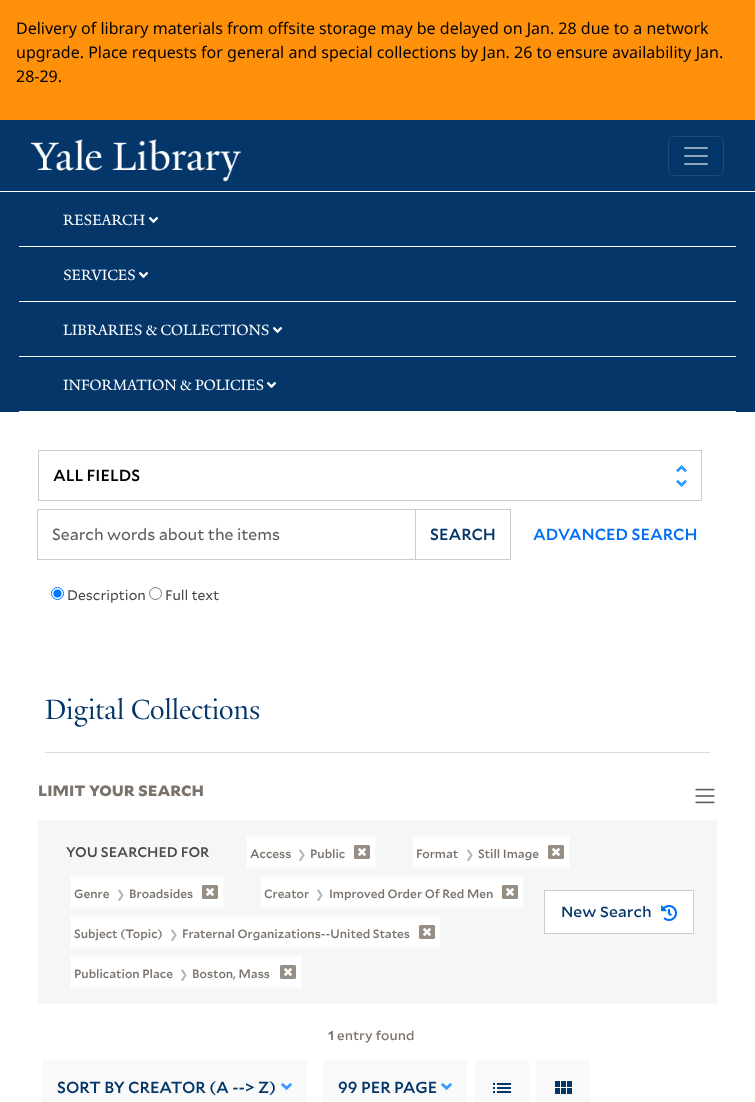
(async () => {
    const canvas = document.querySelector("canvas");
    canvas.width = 755;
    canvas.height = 1102;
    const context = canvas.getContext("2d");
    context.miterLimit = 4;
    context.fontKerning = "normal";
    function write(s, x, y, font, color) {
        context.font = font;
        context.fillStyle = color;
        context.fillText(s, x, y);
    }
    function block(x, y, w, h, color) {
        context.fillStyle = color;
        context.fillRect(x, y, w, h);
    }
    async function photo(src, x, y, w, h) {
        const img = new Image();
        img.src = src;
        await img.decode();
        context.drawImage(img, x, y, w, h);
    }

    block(0, 0, 755, 1102, "rgb(255, 255, 255)");
    block(0, 0, 755, 120, "rgb(254, 144, 10)");
    write("Delivery of library materials from offsite storage may be delayed on Jan. 28 due to a network", 16, 34, "16px Noto Sans", "rgb(0, 0, 0)");
    write("upgrade. Place requests for general and special collections by Jan. 26 to ensure availability Jan.", 16, 58, "16px Noto Sans", "rgb(0, 0, 0)");
    write("28-29.", 16, 82, "16px Noto Sans", "rgb(0, 0, 0)");
    block(0, 120, 755, 71, "rgb(4, 54, 105)");
    await photo("media/1.png", 31, 139, 210, 43);
    context.beginPath();
    context.roundRect(668.5, 136.5, 55, 39, 5.5);
    context.strokeStyle = "rgb(29, 74, 120)";
    context.stroke();
    await photo("media/2.png", 684, 147, 24, 18);
    block(0, 192, 755, 220, "rgb(4, 54, 105)");
    block(19, 246, 717, 1, "rgb(255, 255, 255)");
    write("RESEARCH", 63, 225, "16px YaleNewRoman", "rgb(255, 255, 255)");
    await photo("media/3.png", 149, 217, 9, 6);
    block(19, 301, 717, 1, "rgb(255, 255, 255)");
    write("SERVICES", 63, 280, "16px YaleNewRoman", "rgb(255, 255, 255)");
    await photo("media/3.png", 139, 272, 9, 6);
    block(19, 356, 717, 1, "rgb(255, 255, 255)");
    write("LIBRARIES & COLLECTIONS", 63, 335, "16px YaleNewRoman", "rgb(255, 255, 255)");
    await photo("media/3.png", 273, 327, 9, 6);
    block(19, 411, 717, 1, "rgb(255, 255, 255)");
    write("INFORMATION & POLICIES", 63, 390, "16px YaleNewRoman", "rgb(255, 255, 255)");
    await photo("media/3.png", 267, 382, 9, 6);
    await photo("media/4.png", 676, 465, 11, 22);
    context.strokeStyle = "rgb(204, 204, 204)";
    context.strokeRect(38.5, 450.5, 663, 50);
    write("ALL FIELDS", 53, 481, "500 16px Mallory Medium", "rgb(0, 0, 0)");
    context.strokeRect(37.5, 509.5, 378, 50);
    write("Search words about the items", 52, 540, "16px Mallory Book", "rgb(89, 92, 95)");
    context.strokeRect(415.5, 509.5, 95, 50);
    write("SEARCH", 430, 540, "500 16px Mallory Medium", "rgb(4, 54, 105)");
    write("ADVANCED SEARCH", 533, 540, "500 16px Mallory Medium", "rgb(0, 110, 245)");
    context.beginPath();
    context.arc(57.5, 593.5, 6, 0, Math.PI * 2);
    context.strokeStyle = "rgb(0, 117, 255)";
    context.stroke();
    context.fillStyle = "rgb(0, 117, 255)";
    context.beginPath();
    context.arc(57.5, 593.5, 4, 0, Math.PI * 2);
    context.fill();
    write("Description", 67, 600, "14px Mallory Book", "rgb(74, 74, 74)");
    context.beginPath();
    context.arc(155.5, 593.5, 6, 0, Math.PI * 2);
    context.strokeStyle = "rgb(118, 118, 118)";
    context.stroke();
    write("Full text", 165, 600, "14px Mallory Book", "rgb(74, 74, 74)");
    block(45, 752, 665, 1, "rgb(221, 221, 221)");
    write("Digital Collections", 45, 719, "30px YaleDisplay", "rgb(4, 54, 105)");
    write("LIMIT YOUR SEARCH", 38, 796, "900 14.4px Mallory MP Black", "rgb(123, 115, 107)");
    await photo("media/5.png", 695, 788, 20, 16);
    block(38, 820, 679, 184, "rgb(245, 246, 246)");
    write("YOU SEARCHED FOR", 66, 857, "500 14px Mallory Medium", "rgb(74, 74, 74)");
    context.fillStyle = "rgb(255, 255, 255)";
    context.beginPath();
    context.rect(246.5, 836.5, 129, 31);
    context.fill();
    context.strokeStyle = "rgb(249, 249, 249)";
    context.stroke();
    write("Access", 250, 858, "500 12px Mallory Medium", "rgb(123, 115, 107)");
    write("❯", 297, 858, "11px DejaVu Sans", "rgb(173, 181, 189)");
    write("Public", 310, 858, "500 12px Mallory Medium", "rgb(123, 115, 107)");
    await photo("media/6.png", 354, 845, 16, 14);
    context.fillStyle = "rgb(255, 255, 255)";
    context.beginPath();
    context.rect(412.5, 836.5, 157, 31);
    context.fill();
    context.stroke();
    write("Format", 416, 858, "500 12px Mallory Medium", "rgb(123, 115, 107)");
    write("❯", 465, 858, "11px DejaVu Sans", "rgb(173, 181, 189)");
    write("Still Image", 478, 858, "500 12px Mallory Medium", "rgb(123, 115, 107)");
    await photo("media/6.png", 548, 845, 16, 14);
    context.fillStyle = "rgb(255, 255, 255)";
    context.beginPath();
    context.rect(70.5, 876.5, 153, 31);
    context.fill();
    context.stroke();
    write("Genre", 74, 898, "500 12px Mallory Medium", "rgb(123, 115, 107)");
    write("❯", 116, 898, "11px DejaVu Sans", "rgb(173, 181, 189)");
    write("Broadsides", 129, 898, "500 12px Mallory Medium", "rgb(123, 115, 107)");
    await photo("media/6.png", 202, 885, 16, 14);
    context.fillStyle = "rgb(255, 255, 255)";
    context.beginPath();
    context.rect(260.5, 876.5, 263, 31);
    context.fill();
    context.stroke();
    write("Creator", 264, 898, "500 12px Mallory Medium", "rgb(123, 115, 107)");
    write("❯", 315, 898, "11px DejaVu Sans", "rgb(173, 181, 189)");
    write("Improved Order Of Red Men", 329, 898, "500 12px Mallory Medium", "rgb(123, 115, 107)");
    await photo("media/6.png", 502, 885, 16, 14);
    context.fillStyle = "rgb(255, 255, 255)";
    context.beginPath();
    context.rect(544.5, 890.5, 149, 43);
    context.fill();
    context.strokeStyle = "rgb(204, 204, 204)";
    context.stroke();
    write("New Search", 561, 917, "500 14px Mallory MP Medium", "rgb(4, 54, 105)");
    await photo("media/7.png", 661, 905, 16, 16);
    context.fillStyle = "rgb(255, 255, 255)";
    context.beginPath();
    context.rect(70.5, 916.5, 370, 31);
    context.fill();
    context.strokeStyle = "rgb(249, 249, 249)";
    context.stroke();
    write("Subject (Topic)", 74, 938, "500 12px Mallory Medium", "rgb(123, 115, 107)");
    write("❯", 169, 938, "11px DejaVu Sans", "rgb(173, 181, 189)");
    write("Fraternal Organizations--United States", 182, 938, "500 12px Mallory Medium", "rgb(123, 115, 107)");
    await photo("media/6.png", 419, 925, 16, 14);
    context.fillStyle = "rgb(255, 255, 255)";
    context.beginPath();
    context.rect(70.5, 956.5, 231, 31);
    context.fill();
    context.stroke();
    write("Publication Place", 74, 978, "500 12px Mallory Medium", "rgb(123, 115, 107)");
    write("❯", 179, 978, "11px DejaVu Sans", "rgb(173, 181, 189)");
    write("Boston, Mass", 192, 978, "500 12px Mallory Medium", "rgb(123, 115, 107)");
    await photo("media/6.png", 280, 965, 16, 14);
    write("1", 328, 1040, "bold 12px Mallory MP Medium", "rgb(123, 115, 107)");
    write("entry found", 337, 1040, "500 12px Mallory MP Medium", "rgb(123, 115, 107)");
    block(42, 1060, 265, 42, "rgb(249, 249, 249)");
    write("SORT BY CREATOR (A --> Z)", 57, 1093, "500 16px Mallory Medium", "rgb(4, 54, 105)");
    await photo("media/8.png", 281, 1083, 11, 7);
    block(323, 1060, 144, 42, "rgb(249, 249, 249)");
    write("99 PER PAGE", 338, 1093, "500 16px Mallory Medium", "rgb(4, 54, 105)");
    await photo("media/8.png", 441, 1083, 11, 7);
    block(475, 1060, 54, 42, "rgb(249, 249, 249)");
    await photo("media/9.png", 493, 1083, 18, 10);
    block(536, 1060, 54, 42, "rgb(249, 249, 249)");
    await photo("media/10.png", 555, 1081, 17, 13);
})();
